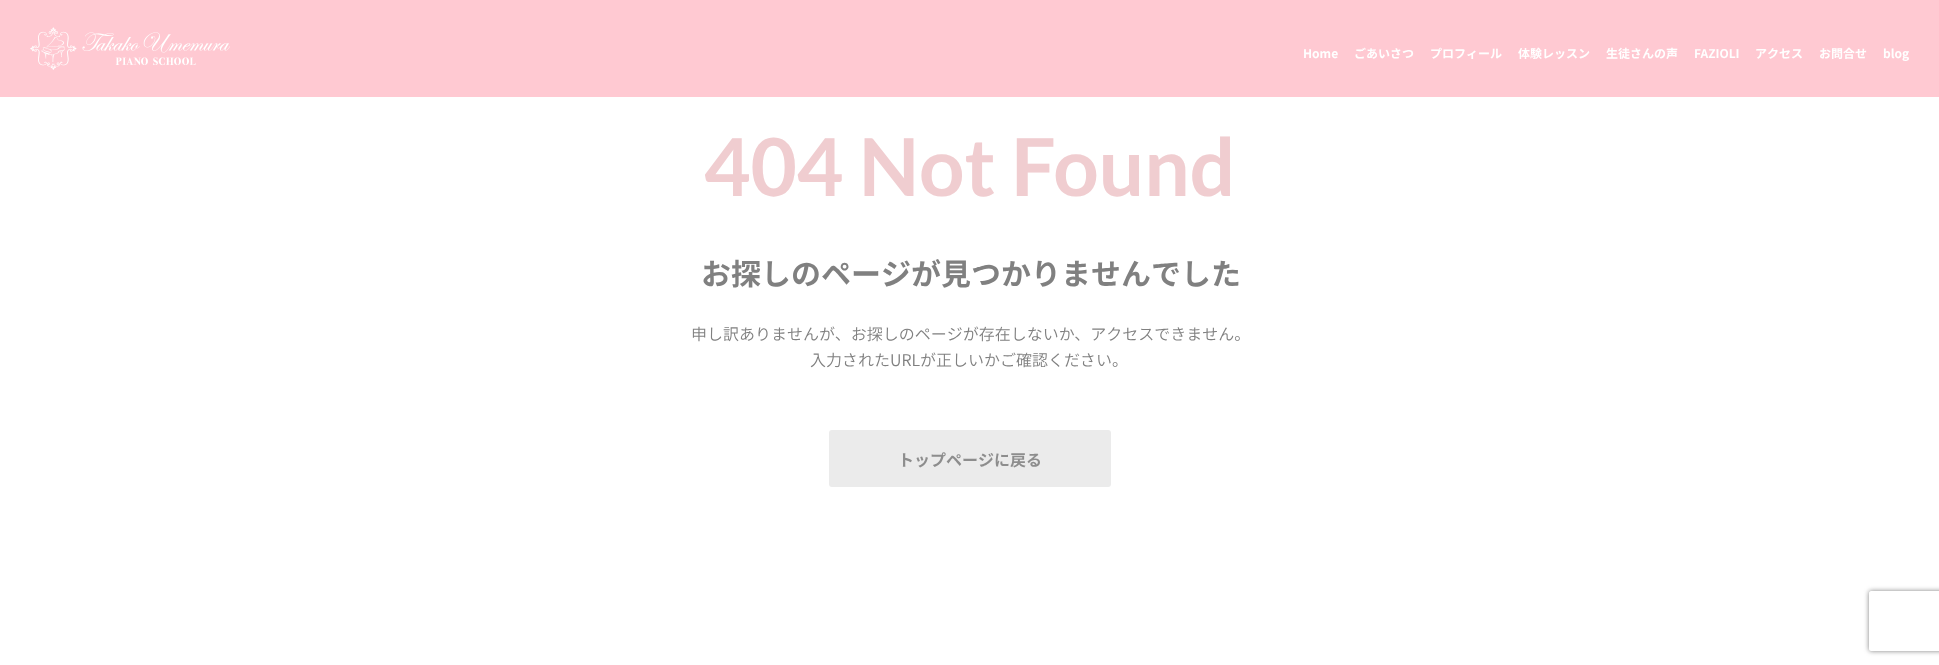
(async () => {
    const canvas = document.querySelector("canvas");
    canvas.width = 1939;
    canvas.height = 665;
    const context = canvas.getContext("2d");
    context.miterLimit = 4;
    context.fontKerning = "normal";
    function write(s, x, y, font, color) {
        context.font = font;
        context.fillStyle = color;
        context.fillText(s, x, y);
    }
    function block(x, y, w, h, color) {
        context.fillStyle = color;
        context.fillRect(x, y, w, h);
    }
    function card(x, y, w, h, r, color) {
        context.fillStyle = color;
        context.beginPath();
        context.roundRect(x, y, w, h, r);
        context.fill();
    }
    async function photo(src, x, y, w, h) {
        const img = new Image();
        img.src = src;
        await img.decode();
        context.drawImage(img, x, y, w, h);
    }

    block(0, 0, 1939, 665, "rgb(255, 255, 255)");
    block(0, 0, 1939, 97, "rgb(255, 201, 210)");
    await photo("media/1.png", 30, 27, 200, 43);
    write("Home", 1303, 58, "bold 12px Noto Sans JP", "rgb(255, 255, 255)");
    write("ごあいさつ", 1354, 58, "bold 12px Noto Sans JP", "rgb(255, 255, 255)");
    write("プロフィール", 1430, 58, "bold 12px Noto Sans JP", "rgb(255, 255, 255)");
    write("体験レッスン", 1518, 58, "bold 12px Noto Sans JP", "rgb(255, 255, 255)");
    write("生徒さんの声", 1606, 58, "bold 12px Noto Sans JP", "rgb(255, 255, 255)");
    write("FAZIOLI", 1694, 58, "bold 12px Noto Sans JP", "rgb(255, 255, 255)");
    write("アクセス", 1755, 58, "bold 12px Noto Sans JP", "rgb(255, 255, 255)");
    write("お問合せ", 1819, 58, "bold 12px Noto Sans JP", "rgb(255, 255, 255)");
    write("blog", 1883, 58, "bold 12px Noto Sans JP", "rgb(255, 255, 255)");
    write("404 Not Found", 704, 196, "bold 80px Lato", "rgb(240, 205, 208)");
    write("お探しのページが見つかりませんでした", 701, 285, "bold 30px Noto Sans JP", "rgb(128, 128, 128)");
    write("申し訳ありませんが、お探しのページが存在しないか、アクセスできません。", 691, 340, "300 16px Noto Sans JP", "rgb(128, 128, 128)");
    write("入力されたURLが正しいかご確認ください。", 810, 366, "300 16px Noto Sans JP", "rgb(128, 128, 128)");
    card(829, 430, 282, 57, 3, "rgb(235, 235, 235)");
    write("トップページに戻る", 898, 466, "bold 16px Noto Sans JP", "rgb(141, 141, 141)");
    context.save();
    context.beginPath();
    context.moveTo(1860, 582);
    context.lineTo(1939, 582);
    context.lineTo(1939, 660);
    context.lineTo(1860, 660);
    context.closePath();
    context.moveTo(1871, 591);
    context.lineTo(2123, 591);
    context.bezierCurveTo(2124, 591, 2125, 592, 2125, 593);
    context.lineTo(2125, 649);
    context.bezierCurveTo(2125, 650, 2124, 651, 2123, 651);
    context.lineTo(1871, 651);
    context.bezierCurveTo(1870, 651, 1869, 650, 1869, 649);
    context.lineTo(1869, 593);
    context.bezierCurveTo(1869, 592, 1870, 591, 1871, 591);
    context.closePath();
    context.clip("evenodd");
    context.fillStyle = "rgb(128, 128, 128)";
    context.filter = "blur(2.5px)";
    context.beginPath();
    context.roundRect(1869, 591, 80, 60, 2);
    context.fill();
    context.filter = "none";
    context.restore();
})();
